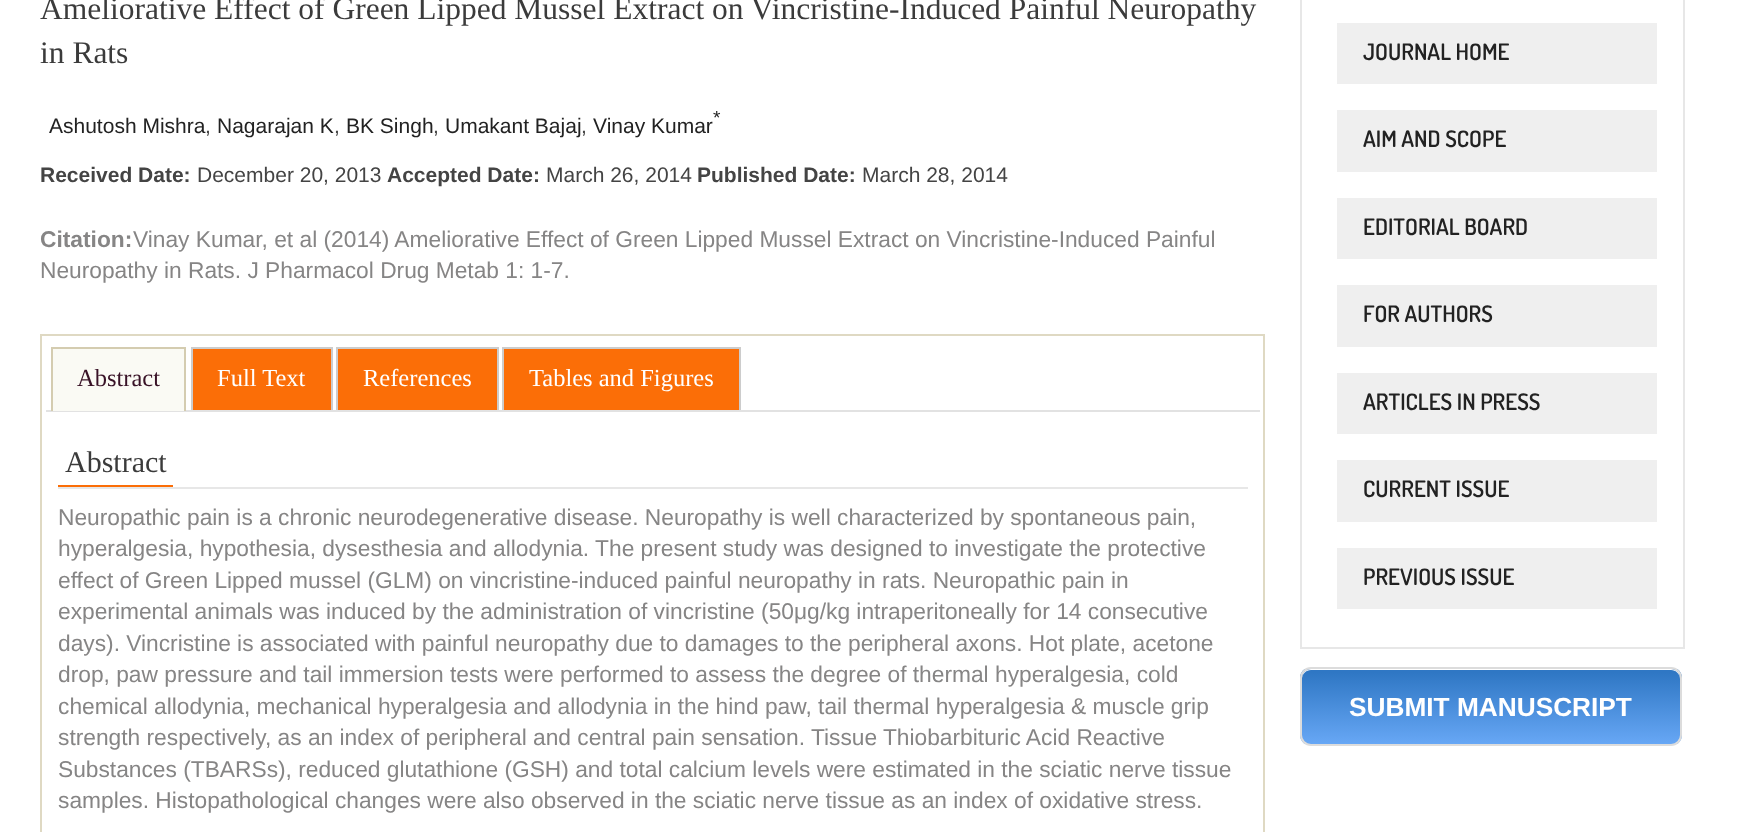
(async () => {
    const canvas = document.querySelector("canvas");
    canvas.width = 1760;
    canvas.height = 832;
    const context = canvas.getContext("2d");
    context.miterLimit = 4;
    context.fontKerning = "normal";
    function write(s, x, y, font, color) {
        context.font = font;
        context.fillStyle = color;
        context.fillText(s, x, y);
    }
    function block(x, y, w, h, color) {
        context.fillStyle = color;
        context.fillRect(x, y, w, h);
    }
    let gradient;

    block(0, 0, 1760, 832, "rgb(255, 255, 255)");
    write("Ameliorative Effect of Green Lipped Mussel Extract on Vincristine-Induced Painful Neuropathy", 40, 19, "31.5px Liberation Serif", "rgb(59, 59, 59)");
    write("in Rats", 40, 63, "31.5px Liberation Serif", "rgb(59, 59, 59)");
    write("*", 713, 124, "19px Liberation Sans", "rgb(34, 34, 34)");
    write("Ashutosh Mishra", 49, 133, "21px Liberation Sans", "rgb(34, 34, 34)");
    write(",", 205, 133, "21px Liberation Sans", "rgb(68, 68, 68)");
    write("Nagarajan K", 217, 133, "21px Liberation Sans", "rgb(34, 34, 34)");
    write(",", 334, 133, "21px Liberation Sans", "rgb(68, 68, 68)");
    write("BK Singh", 346, 133, "21px Liberation Sans", "rgb(34, 34, 34)");
    write(",", 433, 133, "21px Liberation Sans", "rgb(68, 68, 68)");
    write("Umakant Bajaj", 445, 133, "21px Liberation Sans", "rgb(34, 34, 34)");
    write(",", 581, 133, "21px Liberation Sans", "rgb(68, 68, 68)");
    write("Vinay Kumar", 593, 133, "21px Liberation Sans", "rgb(34, 34, 34)");
    write("Received Date:", 40, 182, "bold 21px Liberation Sans", "rgb(68, 68, 68)");
    write("December 20, 2013", 197, 182, "21px Liberation Sans", "rgb(68, 68, 68)");
    write("Accepted Date:", 387, 182, "bold 21px Liberation Sans", "rgb(68, 68, 68)");
    write("March 26, 2014", 546, 182, "21px Liberation Sans", "rgb(68, 68, 68)");
    write("Published Date:", 697, 182, "bold 21px Liberation Sans", "rgb(68, 68, 68)");
    write("March 28, 2014", 862, 182, "21px Liberation Sans", "rgb(68, 68, 68)");
    write("Citation:", 40, 247, "bold 22.75px Liberation Sans", "rgb(134, 133, 133)");
    write("Vinay Kumar, et al (2014) Ameliorative Effect of Green Lipped Mussel Extract on Vincristine-Induced Painful", 133, 247, "22.75px Liberation Sans", "rgb(134, 133, 133)");
    write("Neuropathy in Rats. J Pharmacol Drug Metab 1: 1-7.", 40, 278, "22.75px Liberation Sans", "rgb(134, 133, 133)");
    context.strokeStyle = "rgb(223, 217, 195)";
    context.lineWidth = 2;
    context.strokeRect(41, 335, 1223, 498);
    block(46, 410, 1214, 2, "rgb(226, 226, 226)");
    block(53, 349, 131, 62, "rgb(250, 250, 244)");
    block(51, 347, 135, 2, "rgb(212, 204, 176)");
    block(184, 347, 2, 64, "rgb(212, 204, 176)");
    block(51, 347, 2, 64, "rgb(212, 204, 176)");
    write("Abstract", 77, 386, "24.5px Liberation Serif", "rgb(56, 18, 38)");
    block(193, 349, 138, 61, "rgb(251, 110, 7)");
    block(191, 347, 142, 2, "rgb(204, 204, 204)");
    block(331, 347, 2, 63, "rgb(204, 204, 204)");
    block(191, 347, 2, 63, "rgb(204, 204, 204)");
    write("Full Text", 217, 386, "24.5px Liberation Serif", "rgb(255, 255, 255)");
    block(338, 349, 159, 61, "rgb(251, 110, 7)");
    block(336, 347, 163, 2, "rgb(204, 204, 204)");
    block(497, 347, 2, 63, "rgb(204, 204, 204)");
    block(336, 347, 2, 63, "rgb(204, 204, 204)");
    write("References", 363, 386, "24.5px Liberation Serif", "rgb(255, 255, 255)");
    block(504, 349, 235, 61, "rgb(251, 110, 7)");
    block(502, 347, 238, 2, "rgb(204, 204, 204)");
    block(739, 347, 2, 63, "rgb(204, 204, 204)");
    block(502, 347, 2, 63, "rgb(204, 204, 204)");
    write("Tables and Figures", 529, 386, "24.5px Liberation Serif", "rgb(255, 255, 255)");
    block(58, 487, 1190, 2, "rgb(231, 231, 231)");
    block(58, 485, 115, 2, "rgb(251, 110, 7)");
    write("Abstract", 65, 472, "30px Liberation Serif", "rgb(59, 59, 59)");
    write("Neuropathic pain is a chronic neurodegenerative disease. Neuropathy is well characterized by spontaneous pain,", 58, 525, "22.75px Liberation Sans", "rgb(134, 133, 133)");
    write("hyperalgesia, hypothesia, dysesthesia and allodynia. The present study was designed to investigate the protective", 58, 556, "22.75px Liberation Sans", "rgb(134, 133, 133)");
    write("effect of Green Lipped mussel (GLM) on vincristine-induced painful neuropathy in rats. Neuropathic pain in", 58, 588, "22.75px Liberation Sans", "rgb(134, 133, 133)");
    write("experimental animals was induced by the administration of vincristine (50μg/kg intraperitoneally for 14 consecutive", 58, 619, "22.75px Liberation Sans", "rgb(134, 133, 133)");
    write("days). Vincristine is associated with painful neuropathy due to damages to the peripheral axons. Hot plate, acetone", 58, 651, "22.75px Liberation Sans", "rgb(134, 133, 133)");
    write("drop, paw pressure and tail immersion tests were performed to assess the degree of thermal hyperalgesia, cold", 58, 682, "22.75px Liberation Sans", "rgb(134, 133, 133)");
    write("chemical allodynia, mechanical hyperalgesia and allodynia in the hind paw, tail thermal hyperalgesia & muscle grip", 58, 714, "22.75px Liberation Sans", "rgb(134, 133, 133)");
    write("strength respectively, as an index of peripheral and central pain sensation. Tissue Thiobarbituric Acid Reactive", 58, 745, "22.75px Liberation Sans", "rgb(134, 133, 133)");
    write("Substances (TBARSs), reduced glutathione (GSH) and total calcium levels were estimated in the sciatic nerve tissue", 58, 777, "22.75px Liberation Sans", "rgb(134, 133, 133)");
    write("samples. Histopathological changes were also observed in the sciatic nerve tissue as an index of oxidative stress.", 58, 808, "22.75px Liberation Sans", "rgb(134, 133, 133)");
    context.strokeStyle = "rgb(231, 231, 231)";
    context.strokeRect(1301, -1, 383, 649);
    block(1337, 23, 320, 61, "rgb(239, 239, 239)");
    write("JOURNAL HOME", 1363, 60, "600 22.75px Dosis", "rgb(34, 34, 34)");
    block(1337, 110, 320, 62, "rgb(239, 239, 239)");
    write("AIM AND SCOPE", 1363, 147, "600 22.75px Dosis", "rgb(34, 34, 34)");
    block(1337, 198, 320, 61, "rgb(239, 239, 239)");
    write("EDITORIAL BOARD", 1363, 235, "600 22.75px Dosis", "rgb(34, 34, 34)");
    block(1337, 285, 320, 62, "rgb(239, 239, 239)");
    write("FOR AUTHORS", 1363, 322, "600 22.75px Dosis", "rgb(34, 34, 34)");
    block(1337, 373, 320, 61, "rgb(239, 239, 239)");
    write("ARTICLES IN PRESS", 1363, 410, "600 22.75px Dosis", "rgb(34, 34, 34)");
    block(1337, 460, 320, 62, "rgb(239, 239, 239)");
    write("CURRENT ISSUE", 1363, 497, "600 22.75px Dosis", "rgb(34, 34, 34)");
    block(1337, 548, 320, 61, "rgb(239, 239, 239)");
    write("PREVIOUS ISSUE", 1363, 585, "600 22.75px Dosis", "rgb(34, 34, 34)");
    context.save();
    context.beginPath();
    context.roundRect(1300, 667, 382, 79, 11);
    context.clip();
    gradient = context.createLinearGradient(1302, 669, 1302, 744);
    gradient.addColorStop(0.05, "rgb(47, 119, 196)");
    gradient.addColorStop(1, "rgb(103, 167, 245)");
    context.fillStyle = gradient;
    context.fillRect(1300, 669, 382, 75);
    context.restore();
    context.fillStyle = "rgb(255, 255, 255)";
    context.beginPath();
    context.moveTo(1311, 670);
    context.lineTo(1671, 670);
    context.bezierCurveTo(1676, 670, 1680, 674, 1680, 679);
    context.lineTo(1680, 678);
    context.bezierCurveTo(1680, 673, 1676, 669, 1671, 669);
    context.lineTo(1311, 669);
    context.bezierCurveTo(1306, 669, 1302, 673, 1302, 678);
    context.lineTo(1302, 679);
    context.bezierCurveTo(1302, 674, 1306, 670, 1311, 670);
    context.closePath();
    context.fill();
    context.beginPath();
    context.roundRect(1301, 668, 380, 77, 10);
    context.strokeStyle = "rgb(220, 220, 220)";
    context.stroke();
    write("SUBMIT MANUSCRIPT", 1349, 716, "bold 26.25px Liberation Sans", "rgb(255, 255, 255)");
})();
